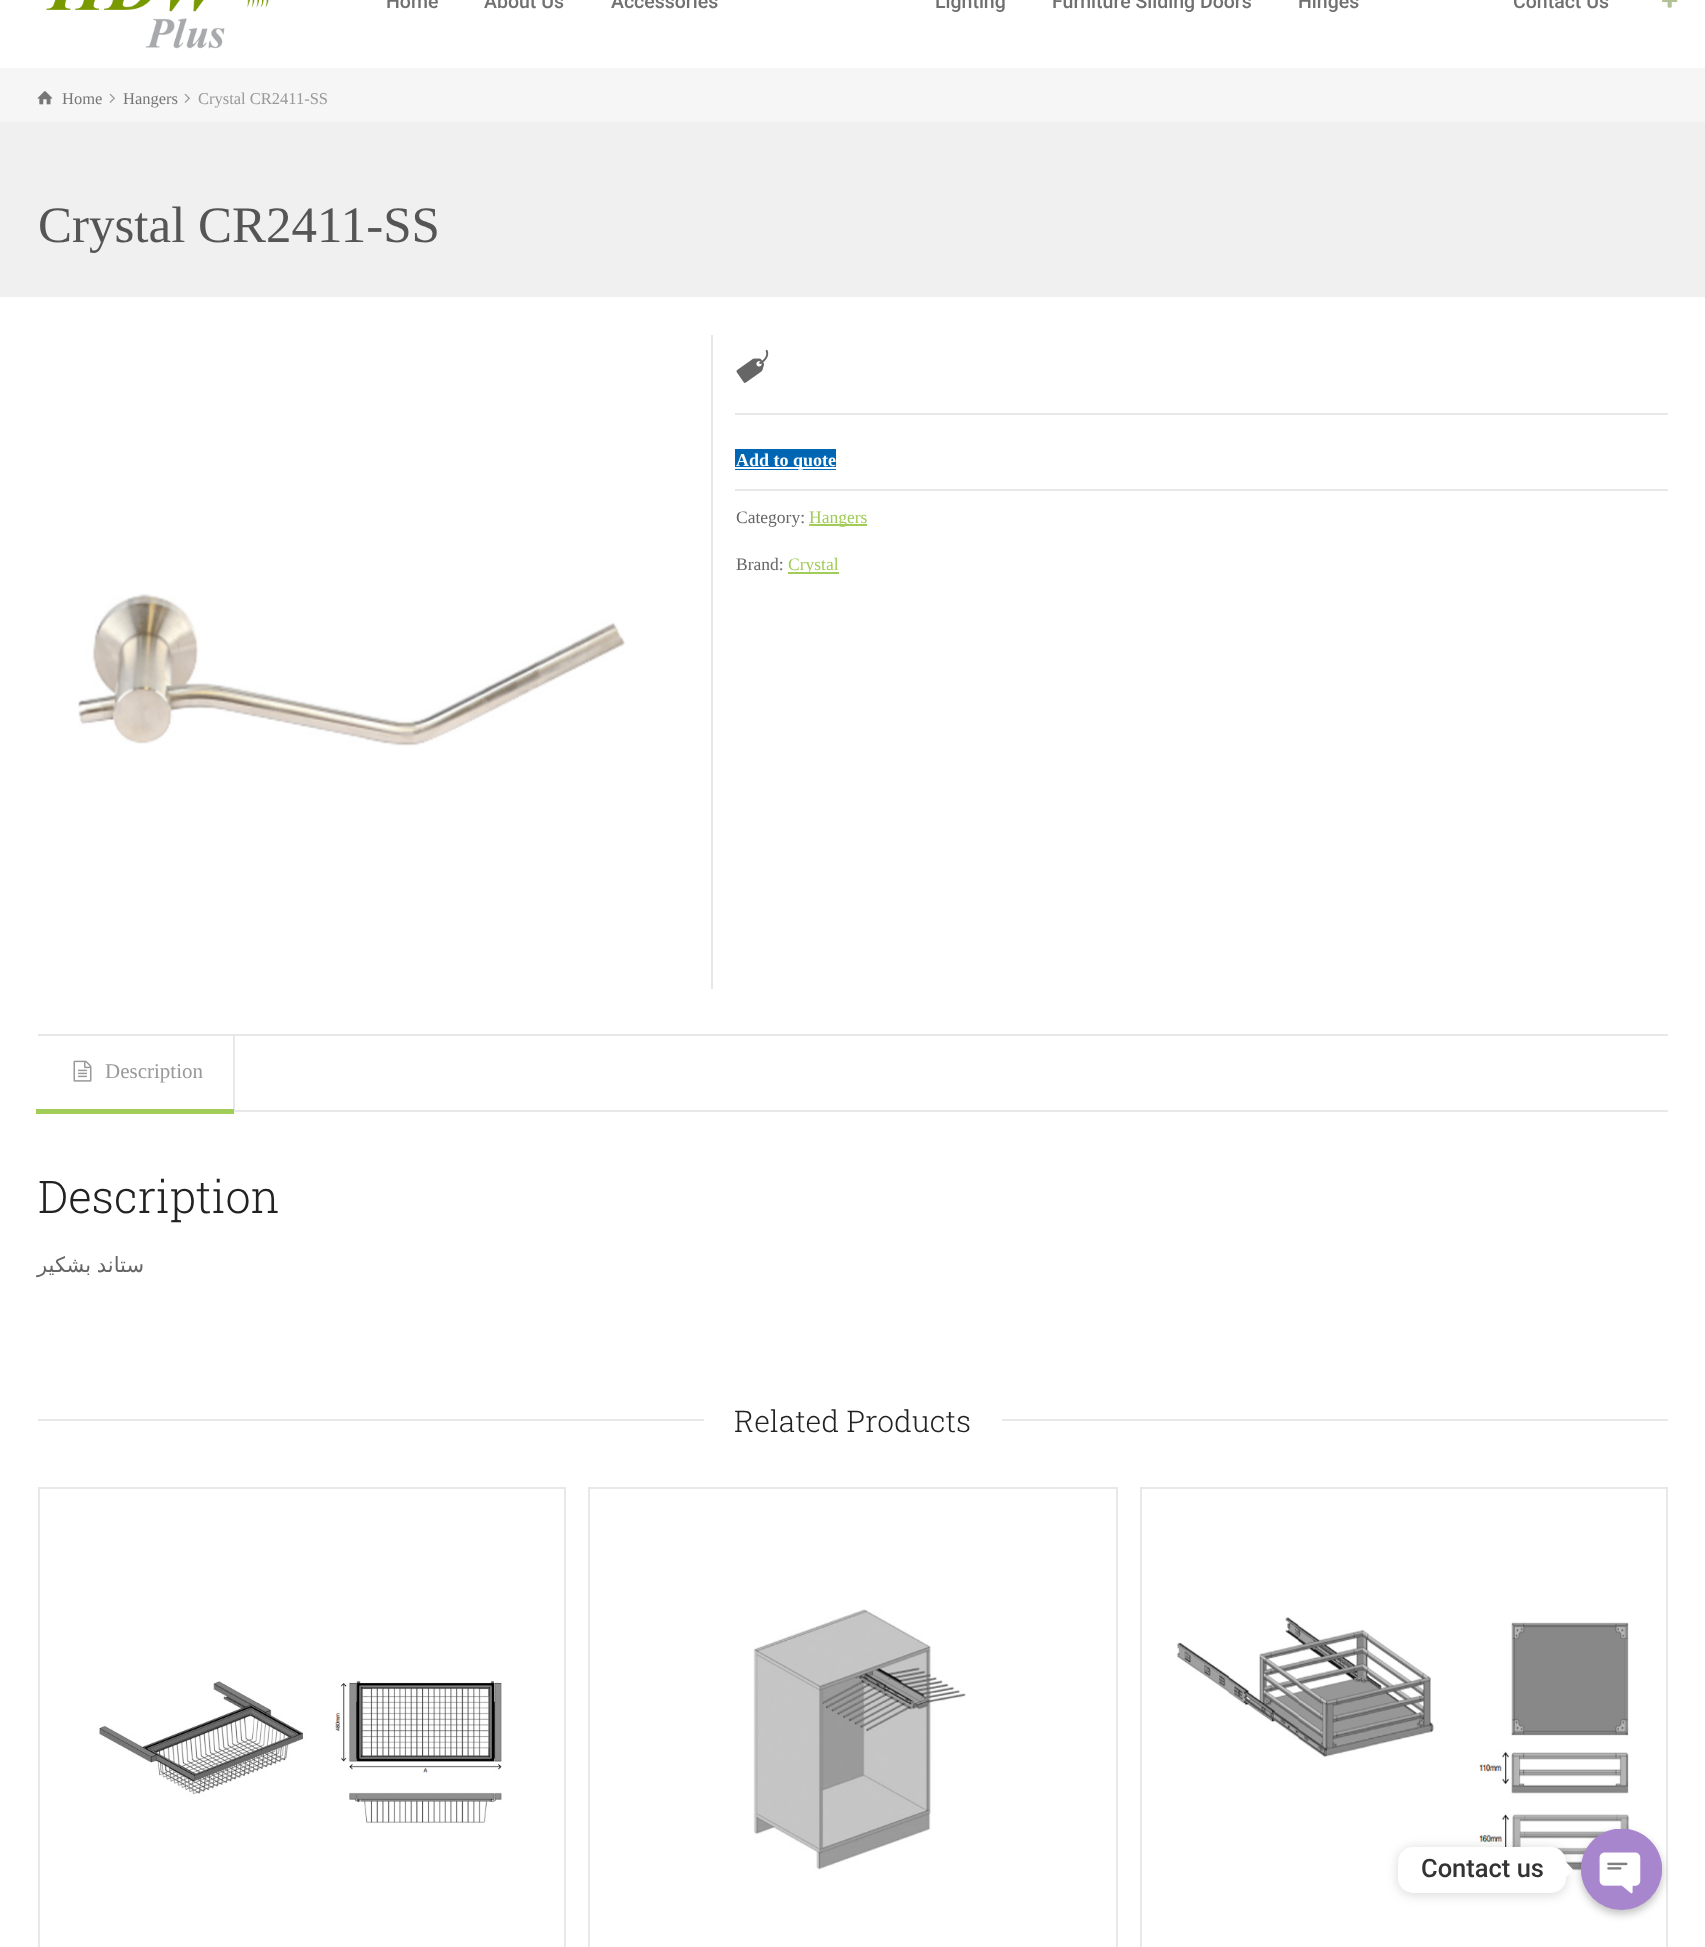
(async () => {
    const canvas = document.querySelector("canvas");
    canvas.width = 1705;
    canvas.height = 1947;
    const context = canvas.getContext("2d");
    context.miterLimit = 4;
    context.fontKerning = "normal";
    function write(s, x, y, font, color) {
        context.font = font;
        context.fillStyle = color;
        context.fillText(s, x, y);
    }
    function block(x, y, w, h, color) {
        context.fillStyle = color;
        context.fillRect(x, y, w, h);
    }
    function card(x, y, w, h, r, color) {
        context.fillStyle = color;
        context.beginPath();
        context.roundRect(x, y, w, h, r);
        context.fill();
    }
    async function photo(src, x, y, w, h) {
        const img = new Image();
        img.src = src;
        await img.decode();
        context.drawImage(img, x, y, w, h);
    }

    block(0, 0, 1705, 1947, "rgb(255, 255, 255)");
    await photo("media/1.png", 46, 0, 223, 49);
    write("Home", 386, 8, "500 19.5px Roboto", "rgb(112, 112, 112)");
    write("About Us", 484, 8, "500 19.5px Roboto", "rgb(112, 112, 112)");
    write("Accessories", 611, 8, "500 19.5px Roboto", "rgb(112, 112, 112)");
    write("Lighting", 935, 8, "500 19.5px Roboto", "rgb(112, 112, 112)");
    write("Furniture Sliding Doors", 1052, 8, "500 19.5px Roboto", "rgb(112, 112, 112)");
    write("Hinges", 1298, 8, "500 19.5px Roboto", "rgb(112, 112, 112)");
    write("Contact Us", 1513, 8, "500 19.5px Roboto", "rgb(112, 112, 112)");
    await photo("media/2.png", 1662, 0, 16, 8);
    block(0, 122, 1705, 175, "rgb(240, 240, 240)");
    block(0, 68, 1705, 54, "rgb(246, 246, 246)");
    await photo("media/3.png", 37, 91, 16, 14);
    write("Home", 62, 104, "16.5px Liberation Serif", "rgb(119, 119, 119)");
    await photo("media/4.png", 109, 93, 6, 10);
    write("Hangers", 123, 104, "16.5px Liberation Serif", "rgb(119, 119, 119)");
    await photo("media/4.png", 184, 93, 6, 10);
    write("Crystal CR2411-SS", 198, 104, "16.5px Liberation Serif", "rgb(153, 153, 153)");
    write("Crystal CR2411-SS", 38, 242, "51px Liberation Serif", "rgb(85, 85, 85)");
    block(711, 335, 2, 654, "rgb(232, 232, 232)");
    block(735, 413, 933, 2, "rgb(232, 232, 232)");
    await photo("media/5.png", 736, 349, 33, 34);
    block(735, 449, 101, 21, "rgb(0, 102, 180)");
    block(735, 467, 101, 2, "rgb(255, 255, 255)");
    write("Add to quote", 736, 466, "bold 18px Liberation Serif", "rgb(255, 255, 255)");
    block(735, 489, 933, 2, "rgb(232, 232, 232)");
    write("Category:", 736, 523, "17.5px Liberation Serif", "rgb(102, 102, 102)");
    block(809, 524, 58, 2, "rgb(161, 204, 87)");
    write("Hangers", 809, 523, "17.5px Liberation Serif", "rgb(161, 204, 87)");
    write("Brand:", 736, 570, "17.5px Liberation Serif", "rgb(102, 102, 102)");
    block(788, 572, 51, 2, "rgb(161, 204, 87)");
    write("Crystal", 788, 570, "17.5px Liberation Serif", "rgb(161, 204, 87)");
    await photo("media/6.png", 78, 594, 547, 152);
    block(38, 1034, 1630, 2, "rgb(232, 232, 232)");
    block(234, 1110, 1434, 2, "rgb(232, 232, 232)");
    block(233, 1035, 2, 75, "rgb(232, 232, 232)");
    await photo("media/7.png", 73, 1060, 19, 22);
    write("Description", 105, 1078, "21px Liberation Serif", "rgb(153, 153, 153)");
    block(36, 1109, 198, 5, "rgb(161, 204, 87)");
    write("Description", 38, 1213, "300 45px Roboto Slab", "rgb(34, 34, 34)");
    context.wordSpacing = "-1px";
    context.direction = "rtl";
    write("ستاند بشكير", 144, 1272, "21px DejaVu Sans", "rgb(102, 102, 102)");
    block(38, 1419, 666, 2, "rgb(232, 232, 232)");
    context.wordSpacing = "0px";
    context.direction = "ltr";
    write("Related Products", 734, 1432, "300 30px Roboto Slab", "rgb(34, 34, 34)");
    block(1002, 1419, 666, 2, "rgb(232, 232, 232)");
    context.strokeStyle = "rgb(232, 232, 232)";
    context.lineWidth = 2;
    context.strokeRect(39, 1488, 526, 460);
    await photo("media/8.png", 99, 1680, 404, 144);
    context.strokeRect(589, 1488, 528, 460);
    await photo("media/9.png", 753, 1609, 213, 261);
    context.strokeRect(1141, 1488, 526, 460);
    await photo("media/10.png", 1176, 1617, 454, 254);
    context.fillStyle = "rgba(0, 0, 0, 0.15)";
    context.filter = "blur(6px)";
    context.beginPath();
    context.roundRect(1398, 1848, 168, 47, 15);
    context.fill();
    context.filter = "none";
    card(1398, 1847, 168, 46, 15, "rgb(255, 255, 255)");
    write("Contact us", 1421, 1877, "500 25.5px Roboto", "rgb(51, 51, 51)");
    context.fillStyle = "rgb(255, 255, 255)";
    context.beginPath();
    context.moveTo(1566, 1877);
    context.lineTo(1566, 1862);
    context.lineTo(1573.5, 1870);
    context.closePath();
    context.fill();
    context.fillStyle = "rgba(0, 0, 0, 0.25)";
    context.filter = "blur(4.5px)";
    context.beginPath();
    context.roundRect(1581, 1833, 81, 81, 40.5);
    context.fill();
    context.filter = "none";
    context.fillStyle = "rgb(168, 134, 205)";
    context.beginPath();
    context.arc(1621.5, 1869.5, 40.5, 0, Math.PI * 2);
    context.fill();
    await photo("media/11.png", 1581, 1829, 81, 65);
})();
